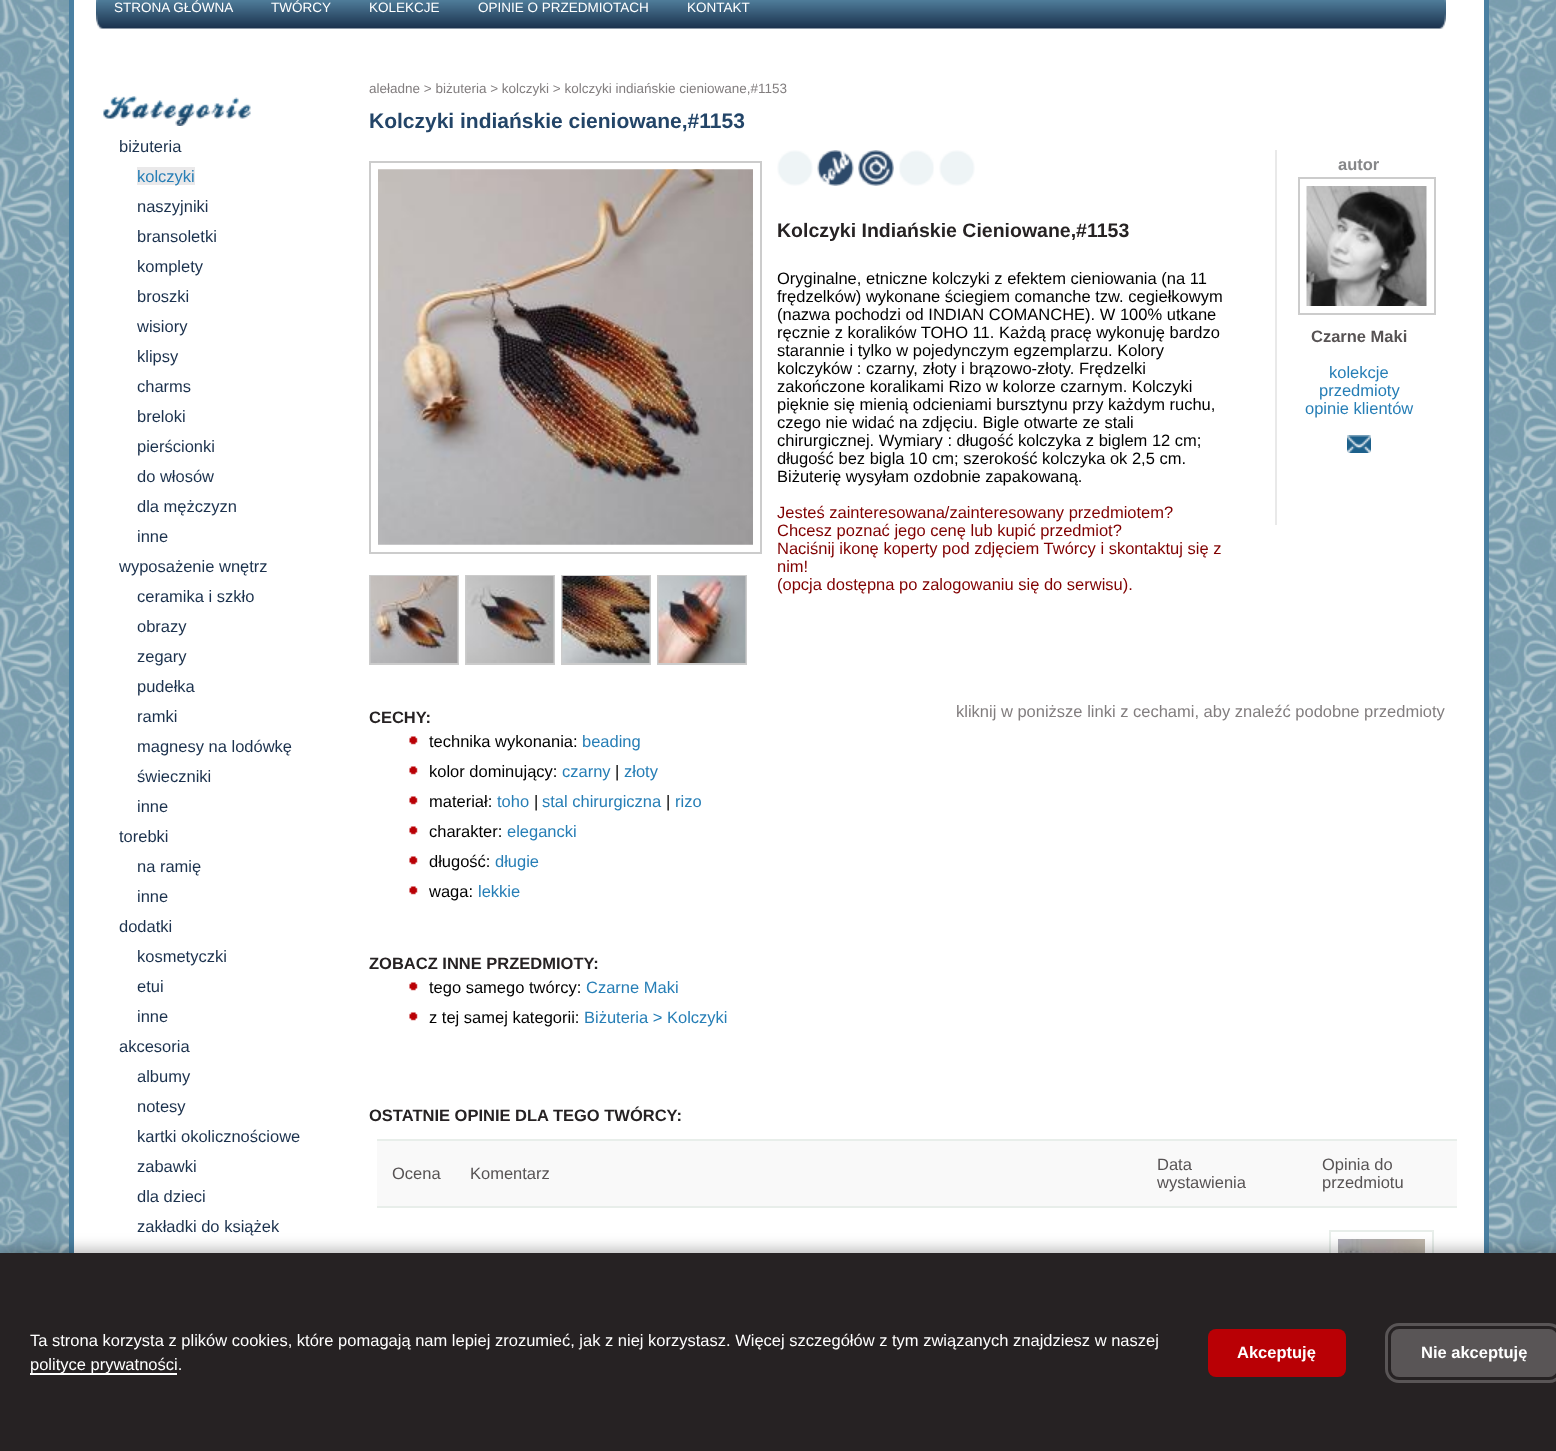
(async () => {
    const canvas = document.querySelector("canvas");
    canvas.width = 1556;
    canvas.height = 1451;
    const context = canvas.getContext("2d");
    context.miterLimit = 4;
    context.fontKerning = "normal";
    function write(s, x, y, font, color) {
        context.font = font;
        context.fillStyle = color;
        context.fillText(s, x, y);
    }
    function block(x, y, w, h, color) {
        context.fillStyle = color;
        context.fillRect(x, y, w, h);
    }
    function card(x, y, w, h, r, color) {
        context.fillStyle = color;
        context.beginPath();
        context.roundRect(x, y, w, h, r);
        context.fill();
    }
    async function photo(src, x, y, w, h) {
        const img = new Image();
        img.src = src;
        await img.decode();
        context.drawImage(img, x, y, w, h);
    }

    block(0, 0, 1556, 1451, "rgb(255, 255, 255)");
    await photo("media/1.png", 0, 0, 1556, 1253);
    block(74, 0, 1410, 1253, "rgb(255, 255, 255)");
    block(1484, 0, 5, 1253, "rgb(74, 128, 162)");
    block(69, 0, 5, 1253, "rgb(74, 128, 162)");
    await photo("media/2.png", 96, 0, 1350, 29);
    write("STRONA GŁÓWNA", 114, 12, "13.5px Liberation Sans", "rgb(255, 255, 255)");
    write("TWÓRCY", 271, 12, "13.5px Liberation Sans", "rgb(255, 255, 255)");
    write("KOLEKCJE", 369, 12, "13.5px Liberation Sans", "rgb(255, 255, 255)");
    write("OPINIE O PRZEDMIOTACH", 478, 12, "13.5px Liberation Sans", "rgb(255, 255, 255)");
    write("KONTAKT", 687, 12, "13.5px Liberation Sans", "rgb(255, 255, 255)");
    await photo("media/3.png", 103, 96, 148, 30);
    write("biżuteria", 119, 152, "16.5px Liberation Sans", "rgb(27, 49, 77)");
    block(137, 167, 58, 18, "rgb(234, 233, 234)");
    write("kolczyki", 137, 182, "16.5px Liberation Sans", "rgb(38, 126, 182)");
    write("naszyjniki", 137, 212, "16.5px Liberation Sans", "rgb(27, 49, 77)");
    write("bransoletki", 137, 242, "16.5px Liberation Sans", "rgb(27, 49, 77)");
    write("komplety", 137, 272, "16.5px Liberation Sans", "rgb(27, 49, 77)");
    write("broszki", 137, 302, "16.5px Liberation Sans", "rgb(27, 49, 77)");
    write("wisiory", 137, 332, "16.5px Liberation Sans", "rgb(27, 49, 77)");
    write("klipsy", 137, 362, "16.5px Liberation Sans", "rgb(27, 49, 77)");
    write("charms", 137, 392, "16.5px Liberation Sans", "rgb(27, 49, 77)");
    write("breloki", 137, 422, "16.5px Liberation Sans", "rgb(27, 49, 77)");
    write("pierścionki", 137, 452, "16.5px Liberation Sans", "rgb(27, 49, 77)");
    write("do włosów", 137, 482, "16.5px Liberation Sans", "rgb(27, 49, 77)");
    write("dla mężczyzn", 137, 512, "16.5px Liberation Sans", "rgb(27, 49, 77)");
    write("inne", 137, 542, "16.5px Liberation Sans", "rgb(27, 49, 77)");
    write("wyposażenie wnętrz", 119, 572, "16.5px Liberation Sans", "rgb(27, 49, 77)");
    write("ceramika i szkło", 137, 602, "16.5px Liberation Sans", "rgb(27, 49, 77)");
    write("obrazy", 137, 632, "16.5px Liberation Sans", "rgb(27, 49, 77)");
    write("zegary", 137, 662, "16.5px Liberation Sans", "rgb(27, 49, 77)");
    write("pudełka", 137, 692, "16.5px Liberation Sans", "rgb(27, 49, 77)");
    write("ramki", 137, 722, "16.5px Liberation Sans", "rgb(27, 49, 77)");
    write("magnesy na lodówkę", 137, 752, "16.5px Liberation Sans", "rgb(27, 49, 77)");
    write("świeczniki", 137, 782, "16.5px Liberation Sans", "rgb(27, 49, 77)");
    write("inne", 137, 812, "16.5px Liberation Sans", "rgb(27, 49, 77)");
    write("torebki", 119, 842, "16.5px Liberation Sans", "rgb(27, 49, 77)");
    write("na ramię", 137, 872, "16.5px Liberation Sans", "rgb(27, 49, 77)");
    write("inne", 137, 902, "16.5px Liberation Sans", "rgb(27, 49, 77)");
    write("dodatki", 119, 932, "16.5px Liberation Sans", "rgb(27, 49, 77)");
    write("kosmetyczki", 137, 962, "16.5px Liberation Sans", "rgb(27, 49, 77)");
    write("etui", 137, 992, "16.5px Liberation Sans", "rgb(27, 49, 77)");
    write("inne", 137, 1022, "16.5px Liberation Sans", "rgb(27, 49, 77)");
    write("akcesoria", 119, 1052, "16.5px Liberation Sans", "rgb(27, 49, 77)");
    write("albumy", 137, 1082, "16.5px Liberation Sans", "rgb(27, 49, 77)");
    write("notesy", 137, 1112, "16.5px Liberation Sans", "rgb(27, 49, 77)");
    write("kartki okolicznościowe", 137, 1142, "16.5px Liberation Sans", "rgb(27, 49, 77)");
    write("zabawki", 137, 1172, "16.5px Liberation Sans", "rgb(27, 49, 77)");
    write("dla dzieci", 137, 1202, "16.5px Liberation Sans", "rgb(27, 49, 77)");
    write("zakładki do książek", 137, 1232, "16.5px Liberation Sans", "rgb(27, 49, 77)");
    write("aleładne > biżuteria > kolczyki > kolczyki indiańskie cieniowane,#1153", 369, 93, "13.5px Liberation Sans", "rgb(130, 126, 127)");
    write("Kolczyki indiańskie cieniowane,#1153", 369, 128, "bold 21px Liberation Sans", "rgb(35, 69, 104)");
    await photo("media/4.png", 378, 169, 375, 376);
    context.strokeStyle = "rgb(204, 204, 204)";
    context.lineWidth = 2;
    context.strokeRect(370, 162, 391, 391);
    await photo("media/5.png", 378, 169, 375, 376);
    context.strokeRect(370, 576, 88, 88);
    await photo("media/6.png", 370, 576, 88, 87);
    context.strokeRect(466, 576, 88, 88);
    await photo("media/7.png", 466, 576, 88, 87);
    context.strokeRect(562, 576, 88, 88);
    await photo("media/8.png", 562, 576, 88, 87);
    context.strokeRect(658, 576, 88, 88);
    await photo("media/9.png", 658, 576, 88, 87);
    await photo("media/10.png", 777, 150, 36, 36);
    await photo("media/11.png", 817, 150, 37, 36);
    await photo("media/12.png", 858, 150, 36, 36);
    await photo("media/13.png", 899, 150, 35, 36);
    await photo("media/10.png", 939, 150, 36, 36);
    block(1275, 150, 2, 375, "rgb(233, 233, 233)");
    write("autor", 1338, 170, "bold 16.5px Liberation Sans", "rgb(134, 135, 137)");
    context.strokeRect(1299, 178, 136, 136);
    await photo("media/14.png", 1306, 186, 121, 120);
    write("Czarne Maki", 1311, 342, "bold 16.5px Liberation Sans", "rgb(87, 83, 84)");
    write("kolekcje", 1329, 378, "16.5px Liberation Sans", "rgb(38, 126, 182)");
    write("przedmioty", 1319, 396, "16.5px Liberation Sans", "rgb(38, 126, 182)");
    write("opinie klientów", 1305, 414, "16.5px Liberation Sans", "rgb(38, 126, 182)");
    await photo("media/15.png", 1347, 435, 24, 18);
    write("Kolczyki Indiańskie Cieniowane,#1153", 777, 237, "bold 19.5px Liberation Sans", "rgb(38, 34, 35)");
    write("Oryginalne, etniczne kolczyki z efektem cieniowania (na 11", 777, 284, "16.5px Liberation Sans", "rgb(0, 0, 0)");
    write("frędzelków) wykonane ściegiem comanche tzw. cegiełkowym", 777, 302, "16.5px Liberation Sans", "rgb(0, 0, 0)");
    write("(nazwa pochodzi od INDIAN COMANCHE). W 100% utkane", 777, 320, "16.5px Liberation Sans", "rgb(0, 0, 0)");
    write("ręcznie z koralików TOHO 11. Każdą pracę wykonuję bardzo", 777, 338, "16.5px Liberation Sans", "rgb(0, 0, 0)");
    write("starannie i tylko w pojedynczym egzemplarzu. Kolory", 777, 356, "16.5px Liberation Sans", "rgb(0, 0, 0)");
    write("kolczyków : czarny, złoty i brązowo-złoty. Frędzelki", 777, 374, "16.5px Liberation Sans", "rgb(0, 0, 0)");
    write("zakończone koralikami Rizo w kolorze czarnym. Kolczyki", 777, 392, "16.5px Liberation Sans", "rgb(0, 0, 0)");
    write("pięknie się mienią odcieniami bursztynu przy każdym ruchu,", 777, 410, "16.5px Liberation Sans", "rgb(0, 0, 0)");
    write("czego nie widać na zdjęciu. Bigle otwarte ze stali", 777, 428, "16.5px Liberation Sans", "rgb(0, 0, 0)");
    write("chirurgicznej. Wymiary : długość kolczyka z biglem 12 cm;", 777, 446, "16.5px Liberation Sans", "rgb(0, 0, 0)");
    write("długość bez bigla 10 cm; szerokość kolczyka ok 2,5 cm.", 777, 464, "16.5px Liberation Sans", "rgb(0, 0, 0)");
    write("Biżuterię wysyłam ozdobnie zapakowaną.", 777, 482, "16.5px Liberation Sans", "rgb(0, 0, 0)");
    write("Jesteś zainteresowana/zainteresowany przedmiotem?", 777, 518, "16.5px Liberation Sans", "rgb(128, 0, 0)");
    write("Chcesz poznać jego cenę lub kupić przedmiot?", 777, 536, "16.5px Liberation Sans", "rgb(128, 0, 0)");
    write("Naciśnij ikonę koperty pod zdjęciem Twórcy i skontaktuj się z", 777, 554, "16.5px Liberation Sans", "rgb(128, 0, 0)");
    write("nim!", 777, 572, "16.5px Liberation Sans", "rgb(128, 0, 0)");
    write("(opcja dostępna po zalogowaniu się do serwisu).", 777, 590, "16.5px Liberation Sans", "rgb(128, 0, 0)");
    write("CECHY:", 369, 723, "bold 16.5px Liberation Sans", "rgb(38, 34, 35)");
    write("kliknij w poniższe linki z cechami, aby znaleźć podobne przedmioty", 956, 717, "16.5px Liberation Sans", "rgb(130, 126, 127)");
    await photo("media/16.png", 409, 736, 9, 9);
    write("technika wykonania:", 429, 747, "16.5px Liberation Sans", "rgb(0, 0, 0)");
    write("beading", 582, 747, "16.5px Liberation Sans", "rgb(38, 126, 182)");
    await photo("media/16.png", 409, 766, 9, 9);
    write("kolor dominujący:", 429, 777, "16.5px Liberation Sans", "rgb(0, 0, 0)");
    write("czarny", 562, 777, "16.5px Liberation Sans", "rgb(38, 126, 182)");
    write("|", 615, 777, "16.5px Liberation Sans", "rgb(0, 0, 0)");
    write("złoty", 624, 777, "16.5px Liberation Sans", "rgb(38, 126, 182)");
    await photo("media/16.png", 409, 796, 9, 9);
    write("materiał:", 429, 807, "16.5px Liberation Sans", "rgb(0, 0, 0)");
    write("toho", 497, 807, "16.5px Liberation Sans", "rgb(38, 126, 182)");
    write("|", 534, 807, "16.5px Liberation Sans", "rgb(0, 0, 0)");
    write("stal chirurgiczna", 542, 807, "16.5px Liberation Sans", "rgb(38, 126, 182)");
    write("|", 666, 807, "16.5px Liberation Sans", "rgb(0, 0, 0)");
    write("rizo", 675, 807, "16.5px Liberation Sans", "rgb(38, 126, 182)");
    await photo("media/16.png", 409, 826, 9, 9);
    write("charakter:", 429, 837, "16.5px Liberation Sans", "rgb(0, 0, 0)");
    write("elegancki", 507, 837, "16.5px Liberation Sans", "rgb(38, 126, 182)");
    await photo("media/16.png", 409, 856, 9, 9);
    write("długość:", 429, 867, "16.5px Liberation Sans", "rgb(0, 0, 0)");
    write("długie", 495, 867, "16.5px Liberation Sans", "rgb(38, 126, 182)");
    await photo("media/16.png", 409, 886, 9, 9);
    write("waga:", 429, 897, "16.5px Liberation Sans", "rgb(0, 0, 0)");
    write("lekkie", 478, 897, "16.5px Liberation Sans", "rgb(38, 126, 182)");
    write("ZOBACZ INNE PRZEDMIOTY:", 369, 969, "bold 16.5px Liberation Sans", "rgb(38, 34, 35)");
    await photo("media/16.png", 409, 982, 9, 9);
    write("tego samego twórcy:", 429, 993, "16.5px Liberation Sans", "rgb(0, 0, 0)");
    write("Czarne Maki", 586, 993, "16.5px Liberation Sans", "rgb(38, 126, 182)");
    await photo("media/16.png", 409, 1012, 9, 9);
    write("z tej samej kategorii:", 429, 1023, "16.5px Liberation Sans", "rgb(0, 0, 0)");
    write("Biżuteria > Kolczyki", 584, 1023, "16.5px Liberation Sans", "rgb(38, 126, 182)");
    write("OSTATNIE OPINIE DLA TEGO TWÓRCY:", 369, 1121, "bold 16.5px Liberation Sans", "rgb(38, 34, 35)");
    block(377, 1141, 1080, 65, "rgb(249, 249, 249)");
    write("Ocena", 392, 1179, "16.5px Liberation Sans", "rgb(87, 83, 84)");
    write("Komentarz", 470, 1179, "16.5px Liberation Sans", "rgb(87, 83, 84)");
    write("Data", 1157, 1170, "16.5px Liberation Sans", "rgb(87, 83, 84)");
    write("wystawienia", 1157, 1188, "16.5px Liberation Sans", "rgb(87, 83, 84)");
    block(377, 1139, 1080, 2, "rgb(232, 238, 234)");
    block(377, 1206, 1080, 2, "rgb(232, 238, 234)");
    write("Opinia do", 1322, 1170, "16.5px Liberation Sans", "rgb(87, 83, 84)");
    write("przedmiotu", 1322, 1188, "16.5px Liberation Sans", "rgb(87, 83, 84)");
    context.strokeStyle = "rgb(232, 238, 234)";
    context.strokeRect(1330, 1231, 103, 103);
    await photo("media/17.png", 1338, 1239, 87, 14);
    context.fillStyle = "rgba(0, 0, 0, 0.3)";
    context.filter = "blur(7.5px)";
    context.beginPath();
    context.rect(0, 1250, 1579, 199);
    context.fill();
    context.filter = "none";
    block(0, 1253, 1556, 198, "rgb(38, 34, 35)");
    write("Ta strona korzysta z plików cookies, które pomagają nam lepiej zrozumieć, jak z niej korzystasz. Więcej szczegółów z tym związanych znajdziesz w naszej", 30, 1346, "16.5px Liberation Sans", "rgb(255, 255, 255)");
    block(30, 1373, 147, 2, "rgb(255, 255, 255)");
    write("polityce prywatności.", 30, 1370, "16.5px Liberation Sans", "rgb(255, 255, 255)");
    card(1208, 1329, 138, 48, 8, "rgb(185, 0, 5)");
    write("Akceptuję", 1237, 1358, "bold 16.5px Liberation Sans", "rgb(255, 255, 255)");
    card(1391, 1329, 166, 48, 8, "rgb(89, 85, 86)");
    context.beginPath();
    context.roundRect(1386.5, 1324.5, 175, 57, 12.5);
    context.strokeStyle = "rgb(89, 85, 86)";
    context.lineWidth = 3;
    context.stroke();
    write("Nie akceptuję", 1421, 1358, "bold 16.5px Liberation Sans", "rgb(255, 255, 255)");
})();
